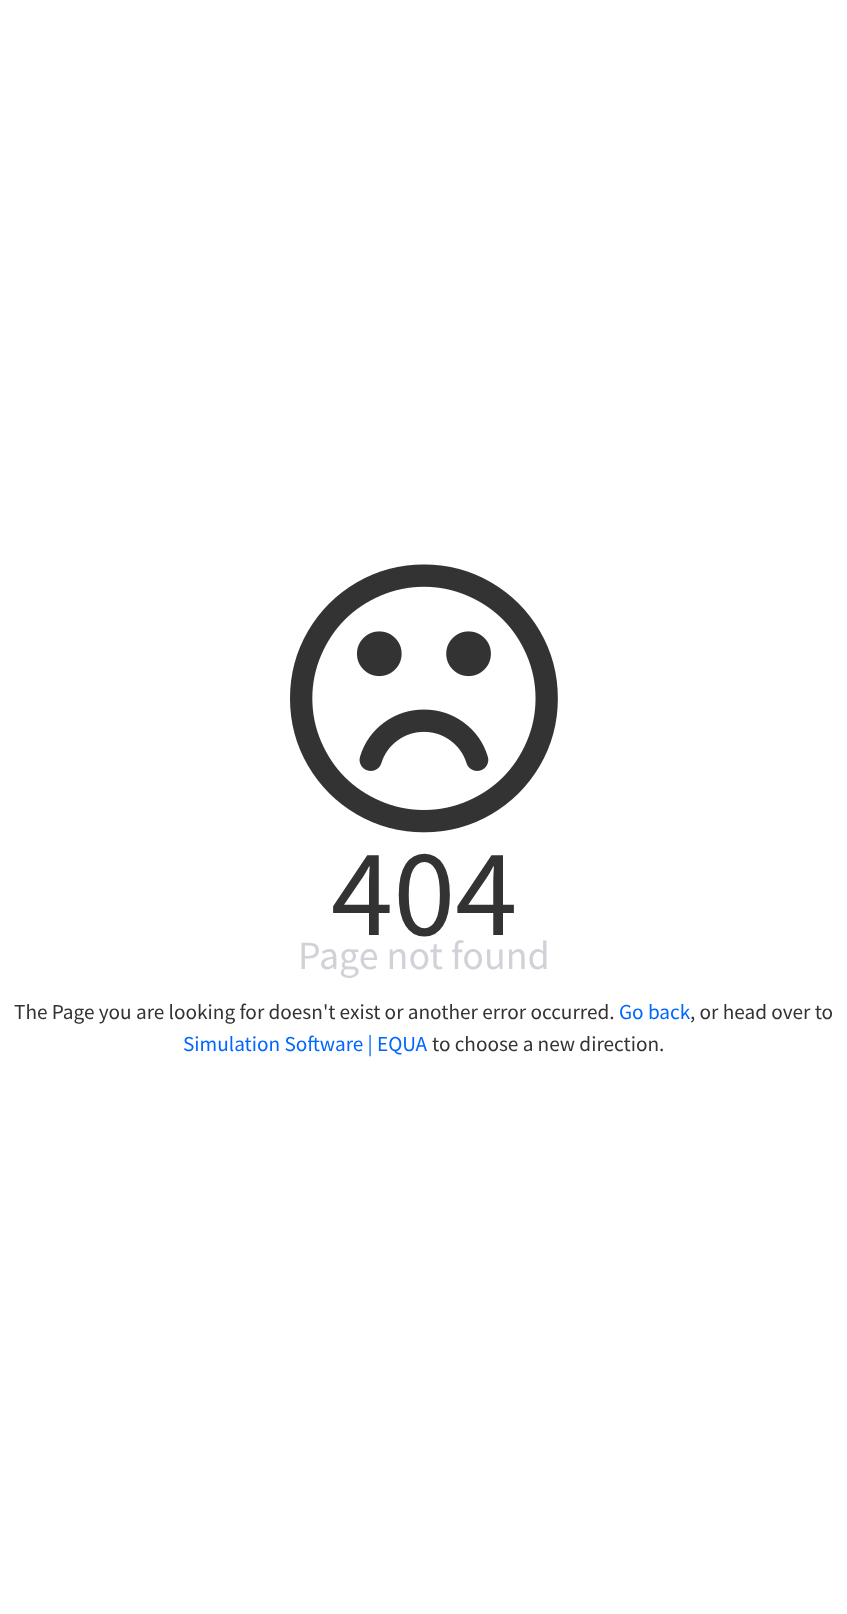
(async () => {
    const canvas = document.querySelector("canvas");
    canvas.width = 847;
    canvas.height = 1614;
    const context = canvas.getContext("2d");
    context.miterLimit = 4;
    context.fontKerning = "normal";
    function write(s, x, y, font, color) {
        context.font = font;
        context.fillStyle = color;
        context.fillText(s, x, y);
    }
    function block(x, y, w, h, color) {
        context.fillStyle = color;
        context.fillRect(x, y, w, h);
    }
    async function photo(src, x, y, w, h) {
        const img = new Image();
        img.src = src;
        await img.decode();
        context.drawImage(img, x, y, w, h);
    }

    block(0, 0, 847, 1614, "rgb(255, 255, 255)");
    await photo("media/1.png", 290, 564, 268, 269);
    write("404", 331, 935, "125px Source Sans Pro", "rgb(51, 51, 51)");
    write("Page not found", 298, 969, "40px Source Sans Pro", "rgb(208, 210, 216)");
    write("The Page you are looking for doesn't exist or another error occurred.", 14, 1019, "21.25px Source Sans Pro", "rgb(51, 51, 51)");
    write("Go back", 619, 1019, "21.25px Source Sans Pro", "rgb(0, 102, 255)");
    write(", or head over to", 690, 1019, "21.25px Source Sans Pro", "rgb(51, 51, 51)");
    write("Simulation Software | EQUA", 183, 1051, "21.25px Source Sans Pro", "rgb(0, 102, 255)");
    write("to choose a new direction.", 432, 1051, "21.25px Source Sans Pro", "rgb(51, 51, 51)");
})();
